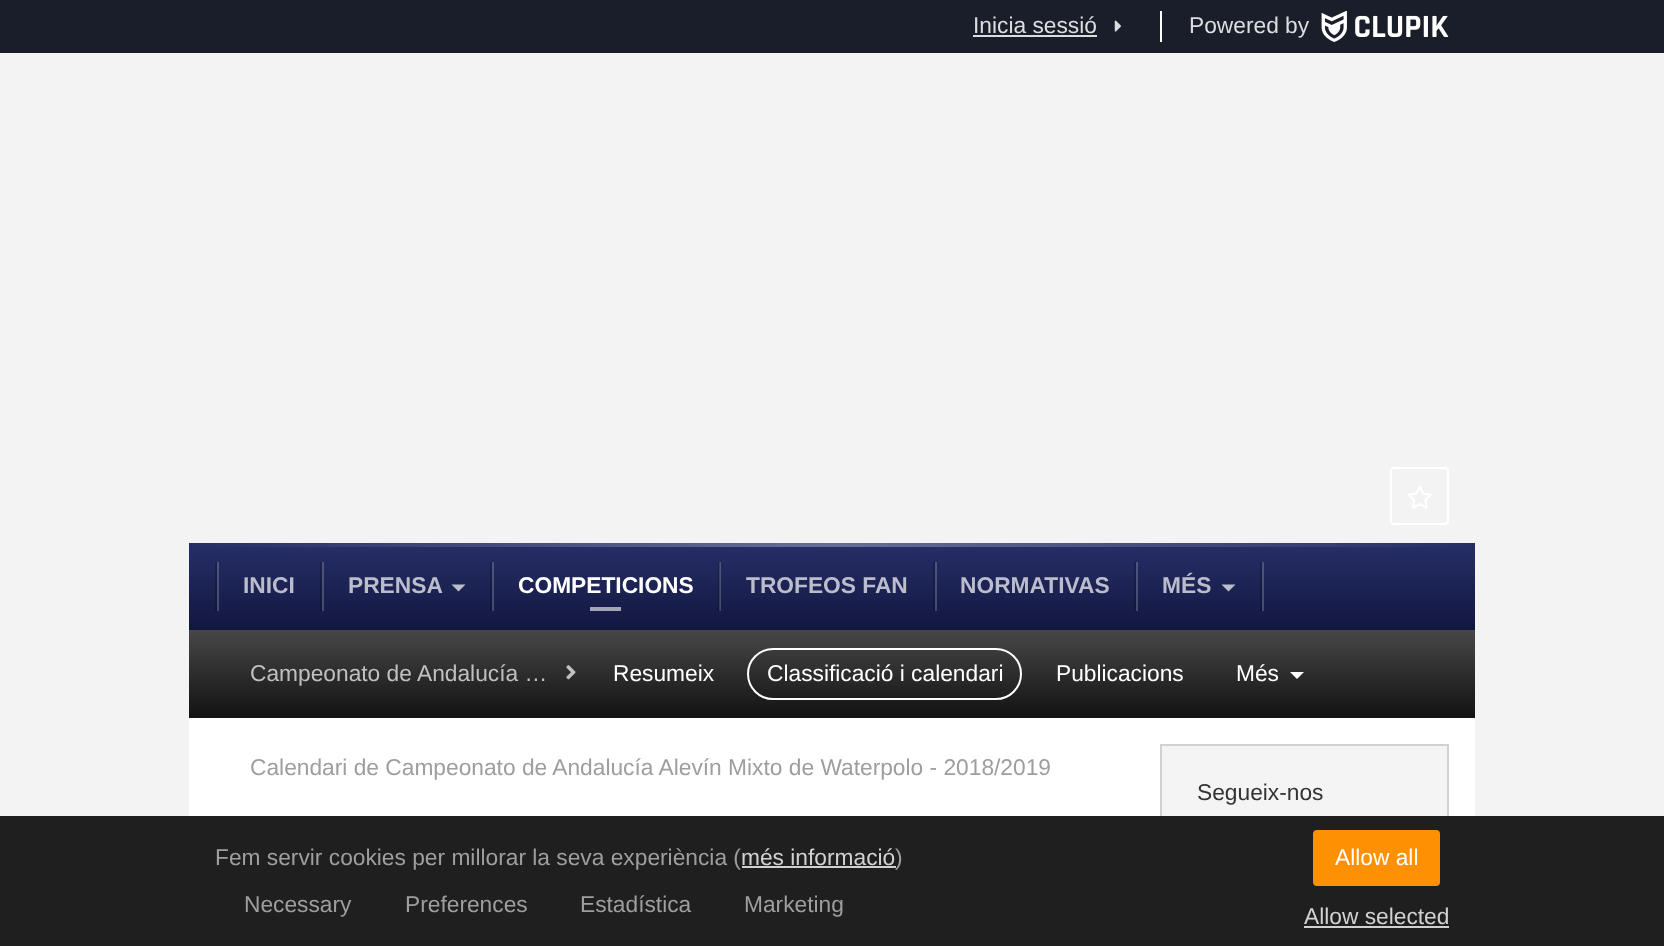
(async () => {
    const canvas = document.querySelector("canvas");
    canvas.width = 1664;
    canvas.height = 946;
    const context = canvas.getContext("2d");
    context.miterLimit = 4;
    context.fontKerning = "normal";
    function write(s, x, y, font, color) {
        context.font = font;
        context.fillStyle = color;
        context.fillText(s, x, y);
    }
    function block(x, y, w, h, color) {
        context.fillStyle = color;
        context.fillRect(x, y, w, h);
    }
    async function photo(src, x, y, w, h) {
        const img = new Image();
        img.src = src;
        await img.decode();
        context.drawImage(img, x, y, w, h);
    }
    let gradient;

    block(0, 0, 1664, 946, "rgb(243, 243, 243)");
    block(0, 0, 1664, 53, "rgb(26, 30, 42)");
    write("Inicia sessió", 973, 33, "22.75px Liberation Sans", "rgb(221, 221, 223)");
    block(973, 35, 124, 2, "rgb(221, 221, 223)");
    await photo("media/1.png", 1114, 20, 7, 12);
    block(1160, 11, 2, 31, "rgb(255, 255, 255)");
    write("Powered by", 1189, 33, "22.75px Liberation Sans", "rgb(221, 221, 223)");
    await photo("media/2.png", 1321, 11, 128, 31);
    context.beginPath();
    context.roundRect(1391, 468, 57, 56, 3);
    context.strokeStyle = "rgb(255, 255, 255)";
    context.lineWidth = 2;
    context.stroke();
    await photo("media/3.png", 1408, 486, 24, 23);
    gradient = context.createLinearGradient(189, 544, 1475, 544);
    gradient.addColorStop(0, "rgb(38, 46, 104)");
    gradient.addColorStop(0.5, "rgb(103, 109, 149)");
    gradient.addColorStop(1, "rgb(38, 46, 104)");
    context.fillStyle = gradient;
    context.fillRect(189, 543, 1286, 4);
    gradient = context.createLinearGradient(832, 542, 832, 630);
    gradient.addColorStop(0, "rgb(39, 47, 105)");
    gradient.addColorStop(1, "rgb(18, 23, 63)");
    context.fillStyle = gradient;
    context.fillRect(189, 547, 1286, 83);
    gradient = context.createLinearGradient(832, 542, 832, 630);
    gradient.addColorStop(0, "rgb(31, 38, 84)");
    gradient.addColorStop(1, "rgb(14, 18, 50)");
    context.fillStyle = gradient;
    context.fillRect(1260, 562, 2, 49);
    gradient = context.createLinearGradient(832, 542, 832, 630);
    gradient.addColorStop(0, "rgb(82, 89, 135)");
    gradient.addColorStop(1, "rgb(65, 69, 101)");
    context.fillStyle = gradient;
    context.fillRect(1262, 562, 2, 49);
    gradient = context.createLinearGradient(832, 542, 832, 630);
    gradient.addColorStop(0, "rgb(31, 38, 84)");
    gradient.addColorStop(1, "rgb(14, 18, 50)");
    context.fillStyle = gradient;
    context.fillRect(1134, 562, 2, 49);
    gradient = context.createLinearGradient(832, 542, 832, 630);
    gradient.addColorStop(0, "rgb(82, 89, 135)");
    gradient.addColorStop(1, "rgb(65, 69, 101)");
    context.fillStyle = gradient;
    context.fillRect(1136, 562, 2, 49);
    gradient = context.createLinearGradient(832, 542, 832, 630);
    gradient.addColorStop(0, "rgb(31, 38, 84)");
    gradient.addColorStop(1, "rgb(14, 18, 50)");
    context.fillStyle = gradient;
    context.fillRect(933, 562, 2, 49);
    gradient = context.createLinearGradient(832, 542, 832, 630);
    gradient.addColorStop(0, "rgb(82, 89, 135)");
    gradient.addColorStop(1, "rgb(65, 69, 101)");
    context.fillStyle = gradient;
    context.fillRect(935, 562, 2, 49);
    gradient = context.createLinearGradient(832, 542, 832, 630);
    gradient.addColorStop(0, "rgb(31, 38, 84)");
    gradient.addColorStop(1, "rgb(14, 18, 50)");
    context.fillStyle = gradient;
    context.fillRect(718, 562, 1, 49);
    gradient = context.createLinearGradient(832, 542, 832, 630);
    gradient.addColorStop(0, "rgb(82, 89, 135)");
    gradient.addColorStop(1, "rgb(65, 69, 101)");
    context.fillStyle = gradient;
    context.fillRect(720, 562, 1, 49);
    gradient = context.createLinearGradient(832, 542, 832, 630);
    gradient.addColorStop(0, "rgb(66, 71, 108)");
    gradient.addColorStop(1, "rgb(52, 55, 81)");
    context.fillStyle = gradient;
    context.fillRect(719, 562, 1, 49);
    gradient = context.createLinearGradient(832, 542, 832, 630);
    gradient.addColorStop(0, "rgb(31, 38, 84)");
    gradient.addColorStop(1, "rgb(14, 18, 50)");
    context.fillStyle = gradient;
    context.fillRect(490, 562, 2, 49);
    gradient = context.createLinearGradient(832, 542, 832, 630);
    gradient.addColorStop(0, "rgb(82, 89, 135)");
    gradient.addColorStop(1, "rgb(65, 69, 101)");
    context.fillStyle = gradient;
    context.fillRect(492, 562, 2, 49);
    gradient = context.createLinearGradient(832, 542, 832, 630);
    gradient.addColorStop(0, "rgb(31, 38, 84)");
    gradient.addColorStop(1, "rgb(14, 18, 50)");
    context.fillStyle = gradient;
    context.fillRect(320, 562, 2, 49);
    gradient = context.createLinearGradient(832, 542, 832, 630);
    gradient.addColorStop(0, "rgb(82, 89, 135)");
    gradient.addColorStop(1, "rgb(65, 69, 101)");
    context.fillStyle = gradient;
    context.fillRect(322, 562, 2, 49);
    gradient = context.createLinearGradient(832, 542, 832, 630);
    gradient.addColorStop(0, "rgb(31, 38, 84)");
    gradient.addColorStop(1, "rgb(14, 18, 50)");
    context.fillStyle = gradient;
    context.fillRect(215, 562, 2, 49);
    gradient = context.createLinearGradient(832, 542, 832, 630);
    gradient.addColorStop(0, "rgb(82, 89, 135)");
    gradient.addColorStop(1, "rgb(65, 69, 101)");
    context.fillStyle = gradient;
    context.fillRect(217, 562, 2, 49);
    write("INICI", 243, 593, "bold 22.75px Liberation Sans", "rgb(187, 189, 204)");
    write("PRENSA", 348, 593, "bold 22.75px Liberation Sans", "rgb(187, 189, 204)");
    context.beginPath();
    context.moveTo(451.5, 584.5);
    context.lineTo(465.5, 584.5);
    context.lineTo(458.5, 591.5);
    context.closePath();
    context.fill();
    write("COMPETICIONS", 518, 593, "bold 22.75px Liberation Sans", "rgb(255, 255, 255)");
    block(590, 607, 31, 4, "rgb(162, 165, 182)");
    write("TROFEOS FAN", 746, 593, "bold 22.75px Liberation Sans", "rgb(187, 189, 204)");
    write("NORMATIVAS", 960, 593, "bold 22.75px Liberation Sans", "rgb(187, 189, 204)");
    write("MÉS", 1162, 593, "bold 22.75px Liberation Sans", "rgb(187, 189, 204)");
    context.beginPath();
    context.moveTo(1221.5, 584.5);
    context.lineTo(1235.5, 584.5);
    context.lineTo(1228.5, 591.5);
    context.closePath();
    context.fill();
    gradient = context.createLinearGradient(832, 630, 832, 718);
    gradient.addColorStop(0, "rgb(71, 71, 71)");
    gradient.addColorStop(1, "rgb(18, 18, 18)");
    context.fillStyle = gradient;
    context.fillRect(189, 630, 1286, 88);
    write("Campeonato de Andalucía …", 250, 681, "22.75px Liberation Sans", "rgb(192, 192, 192)");
    await photo("media/4.png", 566, 665, 10, 15);
    write("Resumeix", 613, 681, "22.75px Liberation Sans", "rgb(255, 255, 255)");
    context.beginPath();
    context.roundRect(748, 649, 273, 50, 25);
    context.stroke();
    write("Classificació i calendari", 767, 681, "22.75px Liberation Sans", "rgb(255, 255, 255)");
    write("Publicacions", 1056, 681, "22.75px Liberation Sans", "rgb(255, 255, 255)");
    write("Més", 1236, 681, "22.75px Liberation Sans", "rgb(255, 255, 255)");
    context.beginPath();
    context.moveTo(1290, 672);
    context.lineTo(1304, 672);
    context.lineTo(1297, 679);
    context.closePath();
    context.fill();
    block(189, 718, 1286, 98, "rgb(255, 255, 255)");
    write("Calendari de Campeonato de Andalucía Alevín Mixto de Waterpolo - 2018/2019", 250, 775, "22.75px Liberation Sans", "rgb(158, 158, 158)");
    block(1162, 746, 285, 70, "rgb(244, 244, 244)");
    context.strokeStyle = "rgb(209, 209, 209)";
    context.strokeRect(1161, 745, 287, 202);
    write("Segueix-nos", 1197, 800, "22.75px Liberation Sans", "rgb(52, 52, 52)");
    block(0, 816, 1664, 130, "rgb(31, 31, 31)");
    write("Fem servir cookies per millorar la seva experiència (", 215, 865, "22.75px Liberation Sans", "rgb(158, 158, 158)");
    write("més informació", 741, 865, "22.75px Liberation Sans", "rgb(209, 209, 209)");
    block(742, 866, 154, 2, "rgb(209, 209, 209)");
    write(")", 895, 865, "22.75px Liberation Sans", "rgb(158, 158, 158)");
    write("Necessary", 244, 912, "22.75px Liberation Sans", "rgb(158, 158, 158)");
    write("Preferences", 405, 912, "22.75px Liberation Sans", "rgb(158, 158, 158)");
    write("Estadística", 580, 912, "22.75px Liberation Sans", "rgb(158, 158, 158)");
    write("Marketing", 744, 912, "22.75px Liberation Sans", "rgb(158, 158, 158)");
    context.fillStyle = "rgb(254, 144, 3)";
    context.beginPath();
    context.roundRect(1314, 831, 125, 54, 3);
    context.fill();
    context.strokeStyle = "rgb(254, 144, 3)";
    context.stroke();
    write("Allow all", 1335, 865, "22.75px Liberation Sans", "rgb(255, 255, 255)");
    write("Allow selected", 1304, 924, "22.75px Liberation Sans", "rgb(209, 209, 209)");
    block(1304, 926, 145, 2, "rgb(209, 209, 209)");
})();
